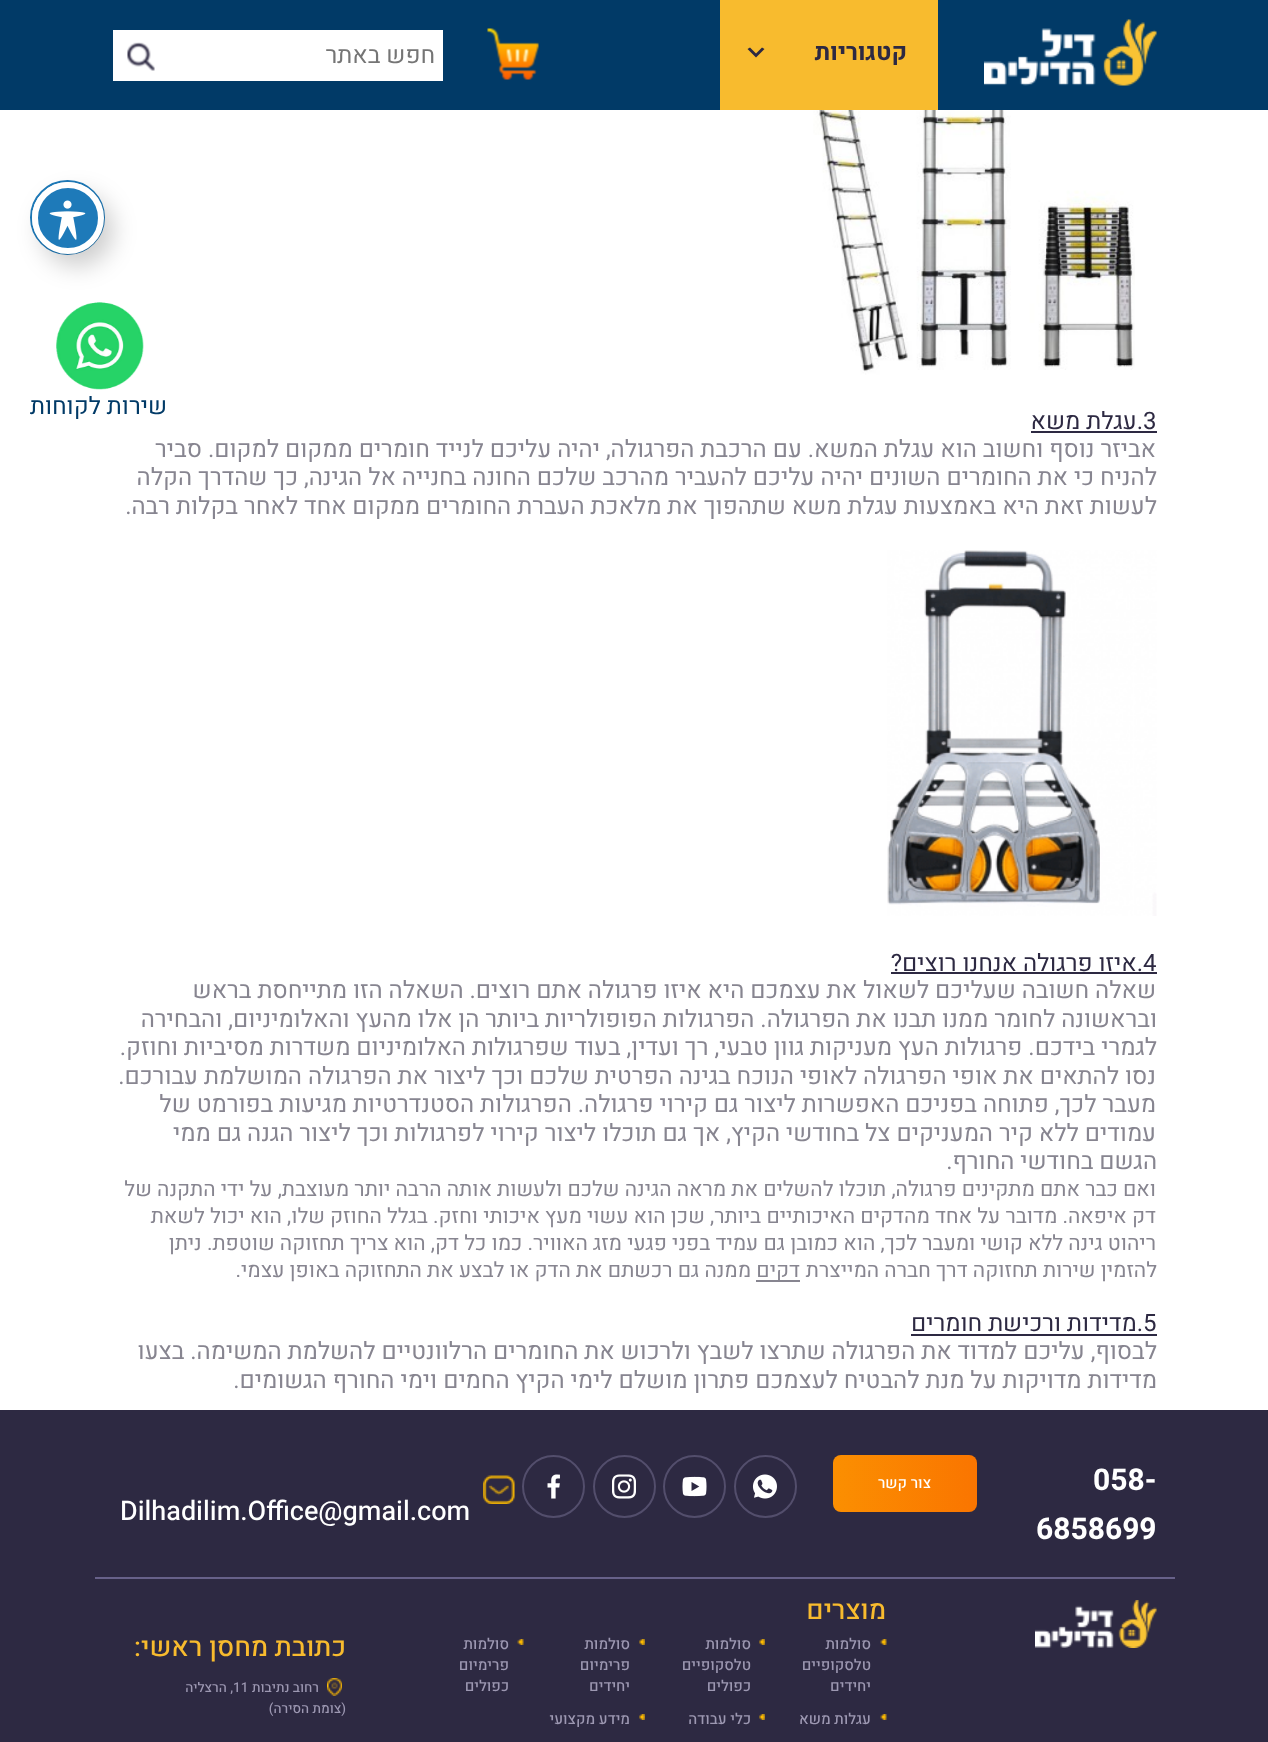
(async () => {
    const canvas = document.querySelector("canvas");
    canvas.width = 1268;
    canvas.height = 1742;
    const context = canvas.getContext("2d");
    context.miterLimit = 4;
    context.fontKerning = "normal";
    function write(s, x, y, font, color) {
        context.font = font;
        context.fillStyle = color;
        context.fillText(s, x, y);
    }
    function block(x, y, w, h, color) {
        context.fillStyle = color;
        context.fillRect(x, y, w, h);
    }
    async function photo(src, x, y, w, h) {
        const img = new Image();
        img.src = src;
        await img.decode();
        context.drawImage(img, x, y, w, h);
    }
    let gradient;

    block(0, 0, 1268, 1742, "rgb(255, 255, 255)");
    block(0, 0, 1268, 110, "rgb(1, 58, 103)");
    await photo("media/1.png", 984, 19, 173, 67);
    block(720, 0, 218, 110, "rgb(248, 187, 46)");
    context.direction = "rtl";
    write("קטגוריות", 907, 60, "bold 24px Heebo", "rgb(45, 41, 66)");
    context.beginPath();
    context.moveTo(750, 47.5);
    context.lineTo(756, 53.5);
    context.lineTo(762, 47.5);
    context.lineTo(764.5, 49);
    context.lineTo(756, 57.5);
    context.lineTo(747.5, 49);
    context.closePath();
    context.fill();
    await photo("media/2.png", 487, 28, 52, 52);
    block(113, 30, 330, 51, "rgb(255, 255, 255)");
    write("חפש באתר", 435, 63, "24px Heebo", "rgb(117, 117, 117)");
    await photo("media/3.png", 127, 42, 28, 29);
    context.beginPath();
    context.arc(67.5, 217.5, 36.5, 0, Math.PI * 2);
    context.strokeStyle = "rgb(30, 122, 185)";
    context.lineWidth = 2;
    context.stroke();
    context.fillStyle = "rgba(0, 0, 0, 0.2)";
    context.filter = "blur(12px)";
    context.beginPath();
    context.roundRect(41, 194, 72, 72, 36);
    context.fill();
    context.filter = "none";
    context.fillStyle = "rgb(30, 122, 185)";
    context.beginPath();
    context.arc(68, 218, 33, 0, Math.PI * 2);
    context.fill();
    context.strokeStyle = "rgb(255, 255, 255)";
    context.lineWidth = 6;
    context.stroke();
    await photo("media/4.png", 49, 200, 37, 40);
    await photo("media/5.png", 56, 302, 88, 88);
    write("שירות לקוחות", 167, 414, "24px Heebo", "rgb(1, 58, 103)");
    await photo("media/6.png", 804, 110, 331, 265);
    context.direction = "ltr";
    write("3", 1143, 429, "24px Heebo", "rgb(45, 41, 66)");
    context.direction = "rtl";
    write(".עגלת משא", 1143, 429, "24px Heebo", "rgb(45, 41, 66)");
    block(1031, 431, 126, 2, "rgb(45, 41, 66)");
    write("אביזר נוסף וחשוב הוא עגלת המשא. עם הרכבת הפרגולה, יהיה עליכם לנייד חומרים ממקום למקום. סביר", 1156, 457, "24px Heebo", "rgb(135, 133, 144)");
    write("להניח כי את החומרים השונים יהיה עליכם להעביר מהרכב שלכם החונה בחנייה אל הגינה, כך שהדרך הקלה", 1157, 485, "24px Heebo", "rgb(135, 133, 144)");
    write("לעשות זאת היא באמצעות עגלת משא שתהפוך את מלאכת העברת החומרים ממקום אחד לאחר בקלות רבה.", 1157, 514, "24px Heebo", "rgb(135, 133, 144)");
    await photo("media/7.png", 887, 550, 270, 366);
    context.direction = "ltr";
    write("4", 1143, 971, "24px Heebo", "rgb(45, 41, 66)");
    context.direction = "rtl";
    write(".איזו פרגולה אנחנו רוצים?", 1143, 971, "24px Heebo", "rgb(45, 41, 66)");
    block(891, 972, 266, 2, "rgb(45, 41, 66)");
    write("שאלה חשובה שעליכם לשאול את עצמכם היא איזו פרגולה אתם רוצים. השאלה הזו מתייחסת בראש", 1156, 998, "24px Heebo", "rgb(135, 133, 144)");
    write("ובראשונה לחומר ממנו תבנו את הפרגולה. הפרגולות הפופולריות ביותר הן אלו מהעץ והאלומיניום, והבחירה", 1157, 1027, "24px Heebo", "rgb(135, 133, 144)");
    write("לגמרי בידכם. פרגולות העץ מעניקות גוון טבעי, רך ועדין, בעוד שפרגולות האלומיניום משדרות מסיביות וחוזק.", 1157, 1055, "24px Heebo", "rgb(135, 133, 144)");
    write("נסו להתאים את אופי הפרגולה לאופי הנוכח בגינה הפרטית שלכם וכך ליצור את הפרגולה המושלמת עבורכם.", 1156, 1084, "24px Heebo", "rgb(135, 133, 144)");
    write("מעבר לכך, פתוחה בפניכם האפשרות ליצור גם קירוי פרגולה. הפרגולות הסטנדרטיות מגיעות בפורמט של", 1156, 1112, "24px Heebo", "rgb(135, 133, 144)");
    write("עמודים ללא קיר המעניקים צל בחודשי הקיץ, אך גם תוכלו ליצור קירוי לפרגולות וכך ליצור הגנה גם ממי", 1156, 1141, "24px Heebo", "rgb(135, 133, 144)");
    write("הגשם בחודשי החורף.", 1157, 1169, "24px Heebo", "rgb(135, 133, 144)");
    write("ואם כבר אתם מתקינים פרגולה, תוכלו להשלים את מראה הגינה שלכם ולעשות אותה הרבה יותר מעוצבת, על ידי התקנה של", 1156, 1196, "21px Heebo", "rgb(135, 133, 144)");
    write("דק איפאה. מדובר על אחד מהדקים האיכותיים ביותר, שכן הוא עשוי מעץ איכותי וחזק. בגלל החוזק שלו, הוא יכול לשאת", 1156, 1223, "21px Heebo", "rgb(135, 133, 144)");
    write("ריהוט גינה ללא קושי ומעבר לכך, הוא כמובן גם עמיד בפני פגעי מזג האוויר. כמו כל דק, הוא צריך תחזוקה שוטפת. ניתן", 1156, 1250, "21px Heebo", "rgb(135, 133, 144)");
    write("להזמין שירות תחזוקה דרך חברה המייצרת", 1157, 1277, "21px Heebo", "rgb(135, 133, 144)");
    block(756, 1280, 44, 2, "rgb(135, 133, 144)");
    write("דקים", 800, 1277, "21px Heebo", "rgb(135, 133, 144)");
    write("ממנה גם רכשתם את הדק או לבצע את התחזוקה באופן עצמי.", 751, 1277, "21px Heebo", "rgb(135, 133, 144)");
    context.direction = "ltr";
    write("5", 1143, 1331, "24px Heebo", "rgb(45, 41, 66)");
    context.direction = "rtl";
    write(".מדידות ורכישת חומרים", 1143, 1331, "24px Heebo", "rgb(45, 41, 66)");
    block(911, 1334, 246, 2, "rgb(45, 41, 66)");
    write("לבסוף, עליכם למדוד את הפרגולה שתרצו לשבץ ולרכוש את החומרים הרלוונטיים להשלמת המשימה. בצעו", 1157, 1359, "24px Heebo", "rgb(135, 133, 144)");
    write("מדידות מדויקות על מנת להבטיח לעצמכם פתרון מושלם לימי הקיץ החמים וימי החורף הגשומים.", 1157, 1388, "24px Heebo", "rgb(135, 133, 144)");
    block(0, 1410, 1268, 332, "rgb(45, 41, 66)");
    context.direction = "ltr";
    write("058-", 1093, 1490, "bold 30px Heebo", "rgb(255, 255, 255)");
    write("6858699", 1036, 1539, "bold 30px Heebo", "rgb(255, 255, 255)");
    gradient = context.createLinearGradient(977, 1484, 833, 1484);
    gradient.addColorStop(0, "rgb(250, 117, 0)");
    gradient.addColorStop(1, "rgb(251, 143, 1)");
    context.fillStyle = gradient;
    context.beginPath();
    context.roundRect(833, 1455, 144, 57, 8);
    context.fill();
    context.direction = "rtl";
    write("צור קשר", 931, 1488, "500 15px Heebo", "rgb(255, 255, 255)");
    context.beginPath();
    context.arc(765.5, 1486.5, 30.5, 0, Math.PI * 2);
    context.strokeStyle = "rgb(83, 78, 108)";
    context.lineWidth = 2;
    context.stroke();
    await photo("media/8.png", 752, 1474, 25, 25);
    context.beginPath();
    context.arc(694.5, 1486.5, 30.5, 0, Math.PI * 2);
    context.stroke();
    await photo("media/9.png", 682, 1476, 25, 21);
    context.beginPath();
    context.arc(624.5, 1486.5, 30.5, 0, Math.PI * 2);
    context.stroke();
    await photo("media/10.png", 612, 1474, 24, 25);
    context.beginPath();
    context.arc(553.5, 1486.5, 30.5, 0, Math.PI * 2);
    context.stroke();
    await photo("media/11.png", 547, 1474, 13, 25);
    await photo("media/12.png", 483, 1475, 32, 29);
    context.direction = "ltr";
    write("Dilhadilim.Office@gmail.com", 120, 1520, "500 27px Heebo", "rgb(255, 255, 255)");
    block(95, 1577, 1080, 2, "rgb(103, 97, 137)");
    await photo("media/13.png", 1035, 1600, 122, 48);
    context.direction = "rtl";
    write("מוצרים", 886, 1619, "500 27px Heebo", "rgb(248, 187, 46)");
    await photo("media/14.png", 880, 1639, 7, 6);
    write("סולמות", 871, 1649, "500 15px Heebo", "rgb(157, 152, 178)");
    write("טלסקופיים", 871, 1670, "500 15px Heebo", "rgb(157, 152, 178)");
    write("יחידים", 871, 1691, "500 15px Heebo", "rgb(157, 152, 178)");
    await photo("media/15.png", 759, 1639, 6, 6);
    write("סולמות", 751, 1649, "500 15px Heebo", "rgb(157, 152, 178)");
    write("טלסקופיים", 751, 1670, "500 15px Heebo", "rgb(157, 152, 178)");
    write("כפולים", 751, 1691, "500 15px Heebo", "rgb(157, 152, 178)");
    await photo("media/16.png", 639, 1639, 6, 6);
    write("סולמות", 630, 1649, "500 15px Heebo", "rgb(157, 152, 178)");
    write("פרימיום", 630, 1670, "500 15px Heebo", "rgb(157, 152, 178)");
    write("יחידים", 630, 1691, "500 15px Heebo", "rgb(157, 152, 178)");
    await photo("media/17.png", 517, 1639, 7, 6);
    write("סולמות", 509, 1649, "500 15px Heebo", "rgb(157, 152, 178)");
    write("פרימיום", 509, 1670, "500 15px Heebo", "rgb(157, 152, 178)");
    write("כפולים", 509, 1691, "500 15px Heebo", "rgb(157, 152, 178)");
    await photo("media/14.png", 880, 1714, 7, 6);
    write("עגלות משא", 871, 1724, "500 15px Heebo", "rgb(157, 152, 178)");
    await photo("media/15.png", 759, 1714, 6, 6);
    write("כלי עבודה", 751, 1724, "500 15px Heebo", "rgb(157, 152, 178)");
    await photo("media/16.png", 639, 1714, 6, 6);
    write("מידע מקצועי", 630, 1724, "500 15px Heebo", "rgb(157, 152, 178)");
    write("כתובת מחסן ראשי:", 346, 1656, "500 27px Heebo", "rgb(248, 187, 46)");
    await photo("media/18.png", 327, 1678, 15, 18);
    write("רחוב נתיבות", 319, 1692, "500 13.5px Heebo", "rgb(157, 152, 178)");
    context.direction = "ltr";
    write("11", 233, 1692, "500 13.5px Heebo", "rgb(157, 152, 178)");
    context.direction = "rtl";
    write(", הרצליה", 233, 1692, "500 13.5px Heebo", "rgb(157, 152, 178)");
    write("(צומת הסירה)", 346, 1713, "500 13.5px Heebo", "rgb(157, 152, 178)");
})();
